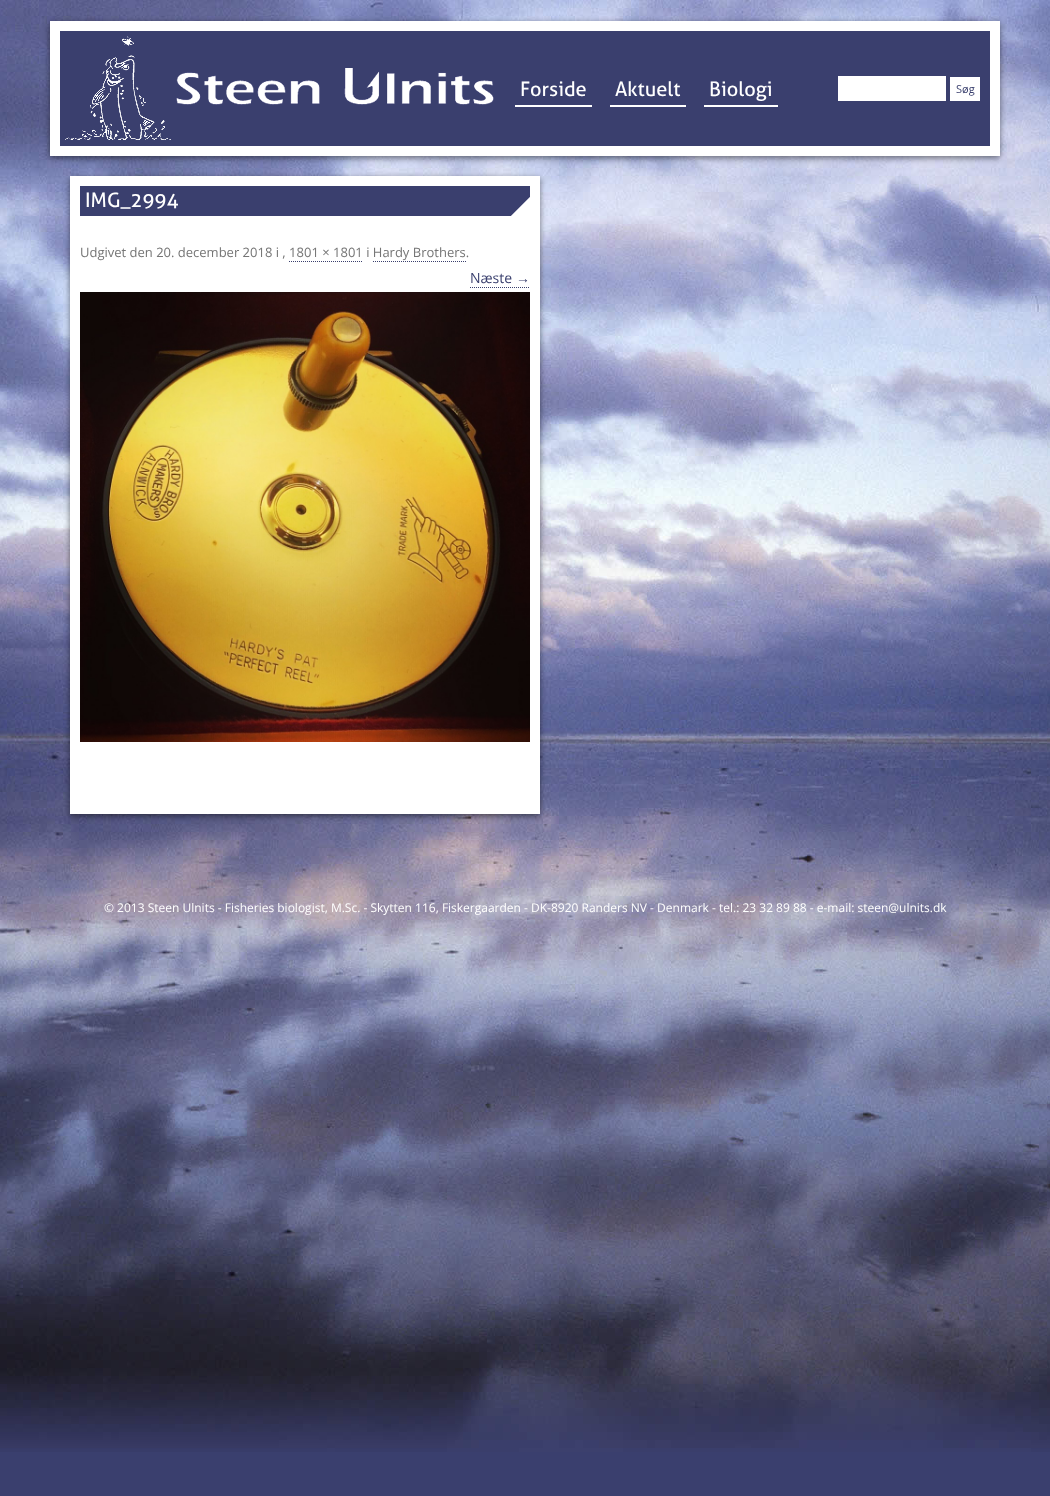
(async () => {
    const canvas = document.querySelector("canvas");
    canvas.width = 1050;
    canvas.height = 1496;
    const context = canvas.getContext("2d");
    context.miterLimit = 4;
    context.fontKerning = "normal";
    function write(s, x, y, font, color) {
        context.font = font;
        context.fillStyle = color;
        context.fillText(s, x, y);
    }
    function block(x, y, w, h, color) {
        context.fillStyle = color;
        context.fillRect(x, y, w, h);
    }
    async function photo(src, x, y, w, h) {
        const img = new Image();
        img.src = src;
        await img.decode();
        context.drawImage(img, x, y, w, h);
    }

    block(0, 0, 1050, 1496, "rgb(58, 63, 110)");
    await photo("media/1.png", 0, 0, 1050, 1452);
    context.fillStyle = "rgba(0, 0, 0, 0.5)";
    context.filter = "blur(3px)";
    context.beginPath();
    context.rect(50, 23, 950, 135);
    context.fill();
    context.filter = "none";
    context.fillStyle = "rgb(58, 63, 110)";
    context.beginPath();
    context.rect(55, 26, 940, 125);
    context.fill();
    context.strokeStyle = "rgb(255, 255, 255)";
    context.lineWidth = 10;
    context.stroke();
    await photo("media/2.png", 65, 36, 429, 104);
    block(515, 105, 77, 2, "rgb(255, 255, 255)");
    write("Forside", 520, 96, "20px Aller", "rgb(255, 255, 255)");
    block(610, 105, 76, 2, "rgb(255, 255, 255)");
    write("Aktuelt", 615, 96, "20px Aller", "rgb(255, 255, 255)");
    block(704, 105, 74, 2, "rgb(255, 255, 255)");
    write("Biologi", 709, 96, "20px Aller", "rgb(255, 255, 255)");
    block(838, 76, 108, 25, "rgb(255, 255, 255)");
    block(950, 77, 30, 24, "rgb(255, 255, 255)");
    write("Søg", 956, 93, "11px Open Sans", "rgb(57, 63, 109)");
    context.fillStyle = "rgba(0, 0, 0, 0.5)";
    context.filter = "blur(3px)";
    context.beginPath();
    context.rect(70, 178, 470, 638);
    context.fill();
    context.filter = "none";
    block(70, 176, 470, 638, "rgb(255, 255, 255)");
    block(80, 186, 450, 30, "rgb(58, 63, 110)");
    await photo("media/3.png", 511, 197, 19, 19);
    write("IMG_2994", 85, 207, "20px Aller", "rgb(255, 255, 255)");
    write("Udgivet den 20. december 2018 i , 1801 × 1801 i Hardy Brothers.", 80, 257, "13px Open Sans", "rgb(117, 117, 117)");
    context.beginPath();
    context.moveTo(289, 261.5);
    context.lineTo(363, 261.5);
    context.strokeStyle = "rgb(57, 63, 109)";
    context.lineWidth = 1;
    context.setLineDash([1, 1]);
    context.stroke();
    context.beginPath();
    context.moveTo(373, 261.5);
    context.lineTo(466, 261.5);
    context.stroke();
    write("Næste", 470, 283, "14px Open Sans", "rgb(57, 63, 109)");
    write("→", 516, 283, "14px Liberation Sans", "rgb(57, 63, 109)");
    context.beginPath();
    context.moveTo(470, 287.5);
    context.lineTo(530, 287.5);
    context.stroke();
    await photo("media/4.png", 80, 292, 450, 450);
    write("© 2013 Steen Ulnits - Fisheries biologist, M.Sc. - Skytten 116, Fiskergaarden - DK-8920 Randers NV - Denmark - tel.: 23 32 89 88 - e-mail: steen@ulnits.dk", 104, 912, "12px Open Sans", "rgb(255, 255, 255)");
})();
